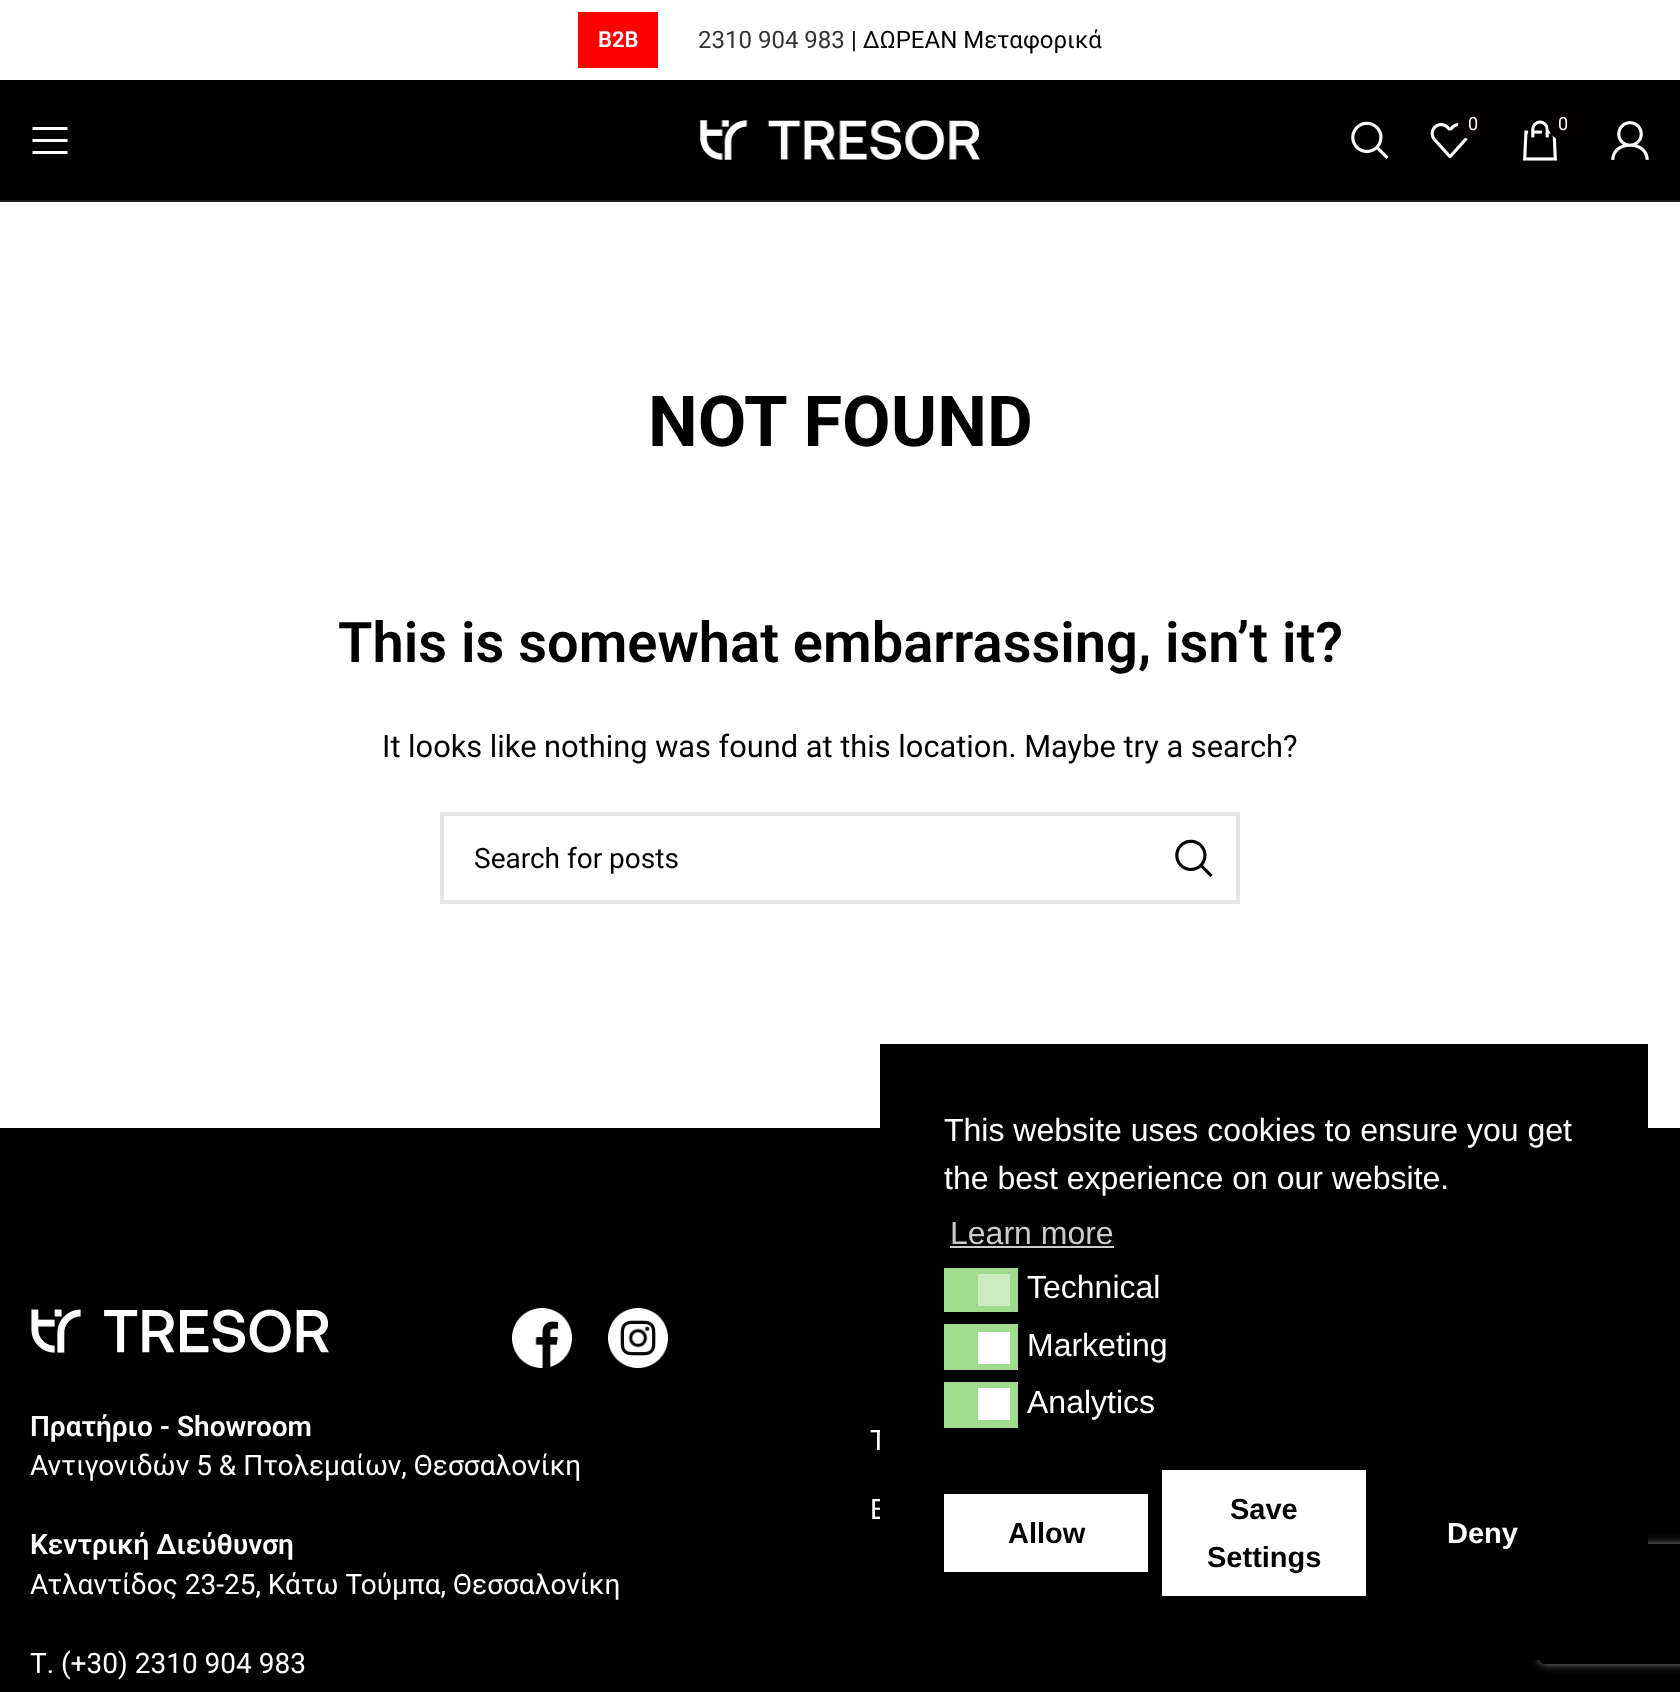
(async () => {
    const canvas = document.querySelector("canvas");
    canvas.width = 1680;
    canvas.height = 1692;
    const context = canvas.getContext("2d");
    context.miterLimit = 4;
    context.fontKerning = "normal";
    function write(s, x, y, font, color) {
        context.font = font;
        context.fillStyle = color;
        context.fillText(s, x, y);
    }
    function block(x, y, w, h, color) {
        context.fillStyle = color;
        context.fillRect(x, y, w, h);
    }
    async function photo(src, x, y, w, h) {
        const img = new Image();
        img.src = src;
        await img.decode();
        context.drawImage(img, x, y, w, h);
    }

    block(0, 0, 1680, 1692, "rgb(255, 255, 255)");
    block(578, 12, 80, 56, "rgb(255, 0, 0)");
    write("B2B", 598, 47, "600 22px Roboto", "rgb(255, 255, 255)");
    write("2310 904 983", 698, 48, "24px Roboto", "rgb(51, 51, 51)");
    write("| ΔΩΡΕΑΝ Μεταφορικά", 851, 48, "24px Roboto", "rgb(0, 0, 0)");
    block(0, 80, 1680, 120, "rgb(0, 0, 0)");
    block(0, 200, 1680, 2, "rgb(26, 26, 26)");
    context.fillStyle = "rgb(255, 255, 255)";
    context.beginPath();
    context.moveTo(32.5, 130);
    context.lineTo(67.5, 130);
    context.lineTo(67.5, 127);
    context.lineTo(32.5, 127);
    context.closePath();
    context.moveTo(32.5, 142);
    context.lineTo(67.5, 142);
    context.lineTo(67.5, 139);
    context.lineTo(32.5, 139);
    context.closePath();
    context.moveTo(32.5, 154);
    context.lineTo(67.5, 154);
    context.lineTo(67.5, 151);
    context.lineTo(32.5, 151);
    context.closePath();
    context.fill();
    await photo("media/1.png", 700, 120, 280, 40);
    await photo("media/2.png", 1351, 121, 38, 38);
    await photo("media/3.png", 1430, 123, 38, 35);
    context.fillStyle = "rgb(5, 0, 0)";
    context.beginPath();
    context.arc(1473, 125, 15, 0, Math.PI * 2);
    context.fill();
    write("0", 1468, 130, "18px Roboto", "rgb(255, 255, 255)");
    await photo("media/4.png", 1523, 120, 34, 41);
    context.fillStyle = "rgb(5, 0, 0)";
    context.beginPath();
    context.arc(1563, 125, 15, 0, Math.PI * 2);
    context.fill();
    write("0", 1558, 130, "18px Roboto", "rgb(255, 255, 255)");
    await photo("media/5.png", 1611, 121, 38, 39);
    write("NOT FOUND", 648, 446, "bold 70.5px Roboto", "rgb(0, 0, 0)");
    write("This is somewhat embarrassing, isn’t it?", 338, 662, "600 56px Roboto", "rgb(0, 0, 0)");
    write("It looks like nothing was found at this location. Maybe try a search?", 382, 757, "30.8px Roboto", "rgb(0, 0, 0)");
    context.strokeStyle = "rgb(230, 230, 230)";
    context.lineWidth = 4;
    context.strokeRect(442, 814, 796, 88);
    write("Search for posts", 474, 868, "28px Roboto", "rgb(0, 0, 0)");
    await photo("media/6.png", 1175, 839, 38, 38);
    block(0, 1128, 1680, 564, "rgb(0, 0, 0)");
    await photo("media/7.png", 31, 1309, 298, 44);
    await photo("media/8.png", 512, 1308, 60, 60);
    await photo("media/9.png", 608, 1308, 60, 60);
    write("Πρατήριο - Showroom", 30, 1436, "600 28px Roboto", "rgb(255, 255, 255)");
    write("Αντιγονιδών 5 & Πτολεμαίων, Θεσσαλονίκη", 30, 1475, "28px Roboto", "rgb(255, 255, 255)");
    write("Κεντρική Διεύθυνση", 30, 1554, "600 28px Roboto", "rgb(255, 255, 255)");
    write("Ατλαντίδος 23-25, Κάτω Τούμπα, Θεσσαλονίκη", 30, 1594, "28px Roboto", "rgb(255, 255, 255)");
    write("Τ. (+30) 2310 904 983", 30, 1673, "28px Roboto", "rgb(255, 255, 255)");
    write("Τ", 870, 1450, "28px Roboto", "rgb(255, 255, 255)");
    write("Ε", 870, 1519, "28px Roboto", "rgb(255, 255, 255)");
    context.save();
    context.beginPath();
    context.moveTo(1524, 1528);
    context.lineTo(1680, 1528);
    context.lineTo(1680, 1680);
    context.lineTo(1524, 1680);
    context.closePath();
    context.moveTo(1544, 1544);
    context.lineTo(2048, 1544);
    context.bezierCurveTo(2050, 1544, 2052, 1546, 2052, 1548);
    context.lineTo(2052, 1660);
    context.bezierCurveTo(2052, 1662, 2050, 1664, 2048, 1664);
    context.lineTo(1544, 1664);
    context.bezierCurveTo(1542, 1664, 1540, 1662, 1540, 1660);
    context.lineTo(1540, 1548);
    context.bezierCurveTo(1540, 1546, 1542, 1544, 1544, 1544);
    context.closePath();
    context.clip("evenodd");
    context.fillStyle = "rgb(128, 128, 128)";
    context.filter = "blur(5px)";
    context.beginPath();
    context.roundRect(1540, 1544, 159, 120, 4);
    context.fill();
    context.filter = "none";
    context.restore();
    block(880, 1044, 768, 616, "rgb(0, 0, 0)");
    write("This website uses cookies to ensure you get", 944, 1141, "32px Liberation Sans", "rgb(255, 255, 255)");
    write("the best experience on our website.", 944, 1189, "32px Liberation Sans", "rgb(255, 255, 255)");
    write("Learn more", 950, 1244, "32px Liberation Sans", "rgb(204, 204, 204)");
    block(950, 1246, 164, 2, "rgb(204, 204, 204)");
    block(944, 1268, 74, 44, "rgb(160, 219, 142)");
    block(978, 1274, 32, 32, "rgb(203, 235, 193)");
    write("Technical", 1027, 1298, "32px Liberation Sans", "rgb(255, 255, 255)");
    block(944, 1324, 74, 46, "rgb(160, 219, 142)");
    block(978, 1332, 32, 32, "rgb(255, 255, 255)");
    write("Marketing", 1027, 1356, "32px Liberation Sans", "rgb(255, 255, 255)");
    block(944, 1382, 74, 46, "rgb(160, 219, 142)");
    block(978, 1388, 32, 32, "rgb(255, 255, 255)");
    write("Analytics", 1027, 1413, "32px Liberation Sans", "rgb(255, 255, 255)");
    block(944, 1494, 204, 78, "rgb(255, 255, 255)");
    write("Allow", 1008, 1543, "bold 29px Liberation Sans", "rgb(0, 0, 0)");
    block(1162, 1470, 204, 126, "rgb(255, 255, 255)");
    write("Save", 1230, 1519, "bold 29px Liberation Sans", "rgb(0, 0, 0)");
    write("Settings", 1207, 1567, "bold 29px Liberation Sans", "rgb(0, 0, 0)");
    write("Deny", 1447, 1543, "bold 29px Liberation Sans", "rgb(255, 255, 255)");
})();
